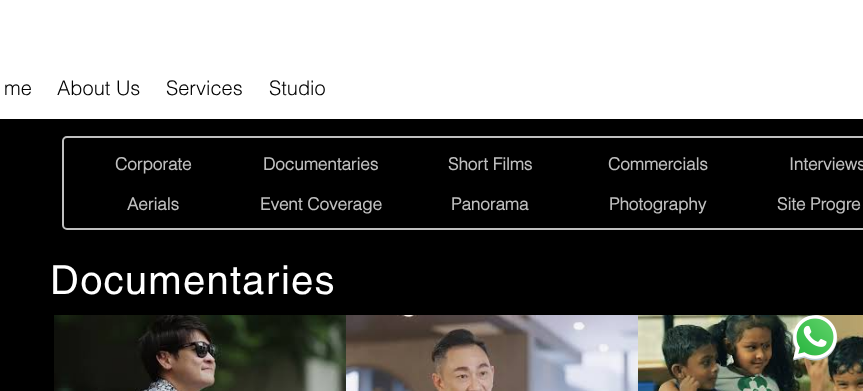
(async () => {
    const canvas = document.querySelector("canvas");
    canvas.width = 863;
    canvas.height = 391;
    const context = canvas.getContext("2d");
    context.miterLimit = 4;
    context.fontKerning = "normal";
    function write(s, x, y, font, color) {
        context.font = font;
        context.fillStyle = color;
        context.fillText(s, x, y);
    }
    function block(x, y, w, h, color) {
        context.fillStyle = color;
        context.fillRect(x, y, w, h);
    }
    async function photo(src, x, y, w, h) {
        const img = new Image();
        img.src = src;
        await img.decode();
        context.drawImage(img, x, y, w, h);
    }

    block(0, 0, 863, 391, "rgb(0, 0, 0)");
    block(0, 0, 863, 119, "rgb(255, 255, 255)");
    write("me", 4, 95, "300 20px helvetica", "rgb(0, 0, 0)");
    write("About Us", 57, 95, "300 20px helvetica", "rgb(0, 0, 0)");
    write("Services", 166, 95, "300 20px helvetica", "rgb(0, 0, 0)");
    write("Studio", 269, 95, "300 20px helvetica", "rgb(0, 0, 0)");
    context.beginPath();
    context.roundRect(63, 137, 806, 92, 4);
    context.strokeStyle = "rgb(191, 191, 191)";
    context.lineWidth = 2;
    context.stroke();
    write("Corporate", 115, 170, "bold 17px helvetica", "rgb(191, 191, 191)");
    write("Documentaries", 263, 170, "bold 17px helvetica", "rgb(191, 191, 191)");
    write("Short Films", 448, 170, "bold 17px helvetica", "rgb(191, 191, 191)");
    write("Commercials", 608, 170, "bold 17px helvetica", "rgb(191, 191, 191)");
    write("Interviews", 789, 170, "bold 17px helvetica", "rgb(191, 191, 191)");
    write("Aerials", 127, 210, "bold 17px helvetica", "rgb(191, 191, 191)");
    write("Event Coverage", 260, 210, "bold 17px helvetica", "rgb(191, 191, 191)");
    write("Panorama", 451, 210, "bold 17px helvetica", "rgb(191, 191, 191)");
    write("Photography", 609, 210, "bold 17px helvetica", "rgb(191, 191, 191)");
    write("Site Progre", 777, 210, "bold 17px helvetica", "rgb(191, 191, 191)");
    context.letterSpacing = "1.25px";
    write("Documentaries", 50, 294, "40px helvetica", "rgb(255, 255, 255)");
    await photo("media/1.png", 54, 315, 292, 76);
    await photo("media/2.png", 346, 315, 292, 76);
    await photo("media/3.png", 638, 315, 225, 76);
    await photo("media/4.png", 793, 315, 44, 46);
})();
